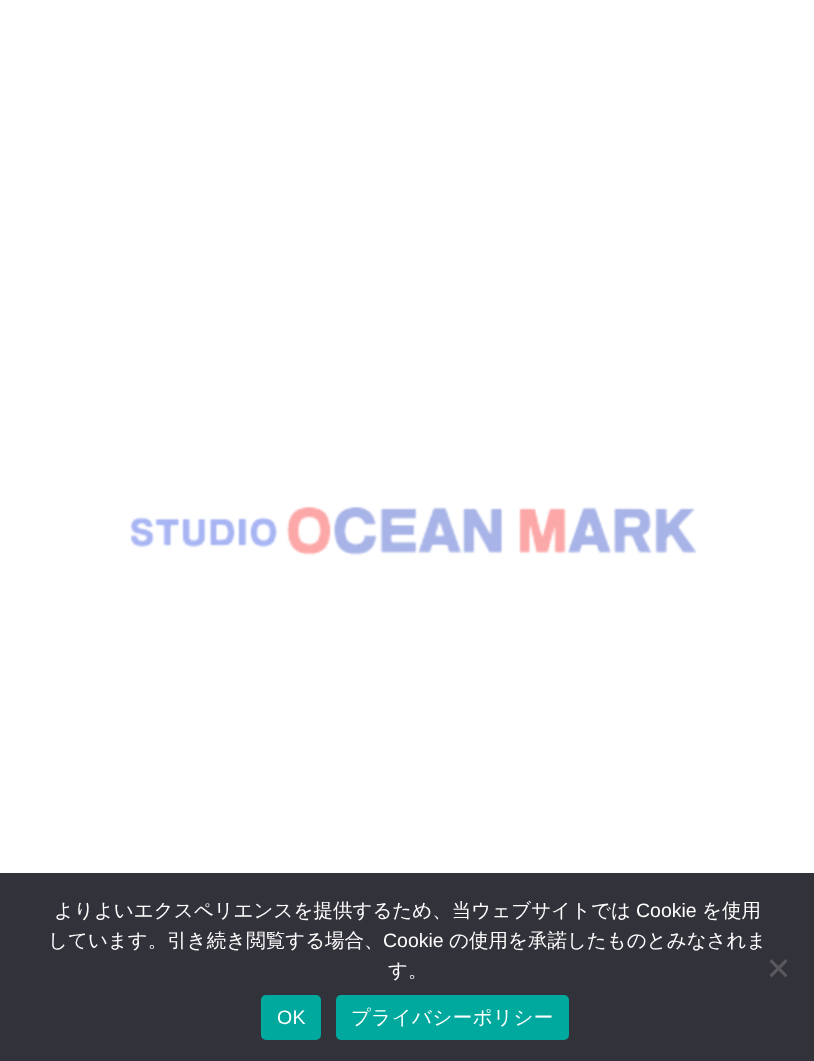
(async () => {
    const canvas = document.querySelector("canvas");
    canvas.width = 814;
    canvas.height = 1061;
    const context = canvas.getContext("2d");
    context.miterLimit = 4;
    context.fontKerning = "normal";
    function write(s, x, y, font, color) {
        context.font = font;
        context.fillStyle = color;
        context.fillText(s, x, y);
    }
    function block(x, y, w, h, color) {
        context.fillStyle = color;
        context.fillRect(x, y, w, h);
    }
    function card(x, y, w, h, r, color) {
        context.fillStyle = color;
        context.beginPath();
        context.roundRect(x, y, w, h, r);
        context.fill();
    }
    async function photo(src, x, y, w, h) {
        const img = new Image();
        img.src = src;
        await img.decode();
        context.drawImage(img, x, y, w, h);
    }

    block(0, 0, 814, 1061, "rgb(255, 255, 255)");
    await photo("media/1.png", 130, 506, 567, 50);
    block(0, 873, 814, 188, "rgb(50, 50, 58)");
    write("よりよいエクスペリエンスを提供するため、当ウェブサイトでは", 54, 917, "500 19.5px WenQuanYi Zen Hei", "rgb(255, 255, 255)");
    write("Cookie", 636, 917, "19.5px Liberation Sans", "rgb(255, 255, 255)");
    write("を使用", 702, 917, "500 19.5px WenQuanYi Zen Hei", "rgb(255, 255, 255)");
    write("しています。引き続き閲覧する場合、", 48, 947, "500 19.5px WenQuanYi Zen Hei", "rgb(255, 255, 255)");
    write("Cookie", 383, 947, "19.5px Liberation Sans", "rgb(255, 255, 255)");
    write("の使用を承諾したものとみなされま", 449, 947, "500 19.5px WenQuanYi Zen Hei", "rgb(255, 255, 255)");
    write("す。", 388, 977, "500 19.5px WenQuanYi Zen Hei", "rgb(255, 255, 255)");
    context.fillStyle = "rgb(89, 89, 93)";
    context.beginPath();
    context.moveTo(785.5, 959);
    context.lineTo(787.5, 961.5);
    context.lineTo(771.5, 977.5);
    context.lineTo(769.5, 975);
    context.closePath();
    context.fill();
    context.beginPath();
    context.moveTo(769.5, 961.5);
    context.lineTo(771.5, 959);
    context.lineTo(787.5, 975);
    context.lineTo(785.5, 977.5);
    context.closePath();
    context.fill();
    card(261, 995, 60, 45, 5, "rgb(0, 169, 157)");
    context.letterSpacing = "0.4px";
    write("OK", 277, 1024, "19.5px Liberation Sans", "rgb(255, 255, 255)");
    card(336, 995, 233, 45, 5, "rgb(0, 169, 157)");
    write("プライバシーポリシー", 351, 1024, "500 19.5px WenQuanYi Zen Hei", "rgb(255, 255, 255)");
})();
